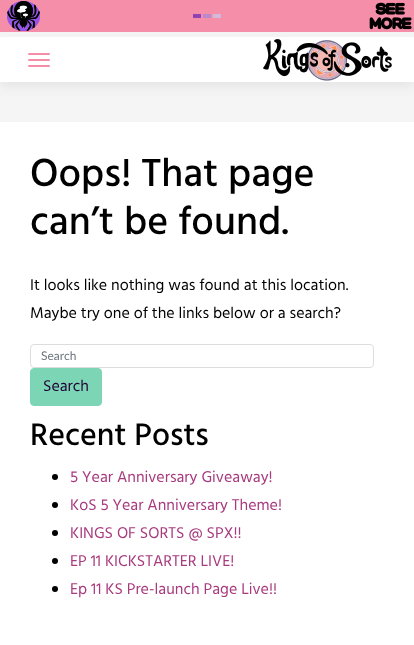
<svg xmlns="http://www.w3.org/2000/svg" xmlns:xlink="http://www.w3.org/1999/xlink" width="414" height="645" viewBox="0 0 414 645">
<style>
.cls-1{font:500 40px Hind;fill:#000000}
.cls-2{font:16px Hind;fill:#000000}
.cls-3{font:12px Lato;fill:#6c757d}
.cls-4{font:16px Hind;fill:#210035}
.cls-5{font:500 32px Hind;fill:#000000}
.cls-6{font:16px Hind;fill:#a83a7e}
</style>
<rect width="100%" height="100%" fill="#f5f5f5"/>
<rect fill="#323232" fill-opacity="0.08" filter="blur(5.5px)" x="0" y="42" width="414" height="45"/>
<rect fill="#f58ea8" x="0" y="0" width="414" height="32"/>
<image xlink:href="image0.png" x="7" y="1" width="33" height="30"/>
<image xlink:href="image1.png" x="193" y="14" width="28" height="4"/>
<image xlink:href="image2.png" x="369" y="2" width="43" height="28"/>
<rect fill="#ffffff" x="0" y="37" width="414" height="45"/>
<rect fill="#f58ea8" x="28" y="53" width="22" height="2" rx="1"/>
<rect fill="#f58ea8" x="28" y="59" width="22" height="2" rx="1"/>
<rect fill="#f58ea8" x="28" y="65" width="22" height="2" rx="1"/>
<image xlink:href="image3.png" x="263" y="39" width="129" height="42"/>
<rect fill="#ffffff" x="0" y="122" width="414" height="523"/>
<rect fill="none" stroke="#dddddd" x="30.5" y="344.5" width="343" height="23" rx="3.5"/>
<rect fill="#7cd6b5" stroke="#7cd6b5" x="30.5" y="368.5" width="71" height="37" rx="3.5"/>
<circle fill="#000000" cx="55" cy="477" r="3"/>
<circle fill="#000000" cx="55" cy="505" r="3"/>
<circle fill="#000000" cx="55" cy="533" r="3"/>
<circle fill="#000000" cx="55" cy="561" r="3"/>
<circle fill="#000000" cx="55" cy="589" r="3"/>
<text class="cls-1"><tspan x="30" y="186">Oops! That page</tspan><tspan x="30" y="234">can’t be found.</tspan></text>
<text class="cls-2"><tspan x="30" y="290">It looks like nothing was found at this location.</tspan><tspan x="30" y="318">Maybe try one of the links below or a search?</tspan></text>
<text class="cls-3" x="41" y="360">Search</text>
<text class="cls-4" x="43" y="391">Search</text>
<text class="cls-5" x="30" y="445">Recent Posts</text>
<text class="cls-6"><tspan x="70" y="482">5 Year Anniversary Giveaway!</tspan><tspan x="70" y="510">KoS 5 Year Anniversary Theme!</tspan><tspan x="70" y="538">KINGS OF SORTS @ SPX!!</tspan><tspan x="70" y="566">EP 11 KICKSTARTER LIVE!</tspan><tspan x="70" y="594">Ep 11 KS Pre-launch Page Live!!</tspan></text>
</svg>
